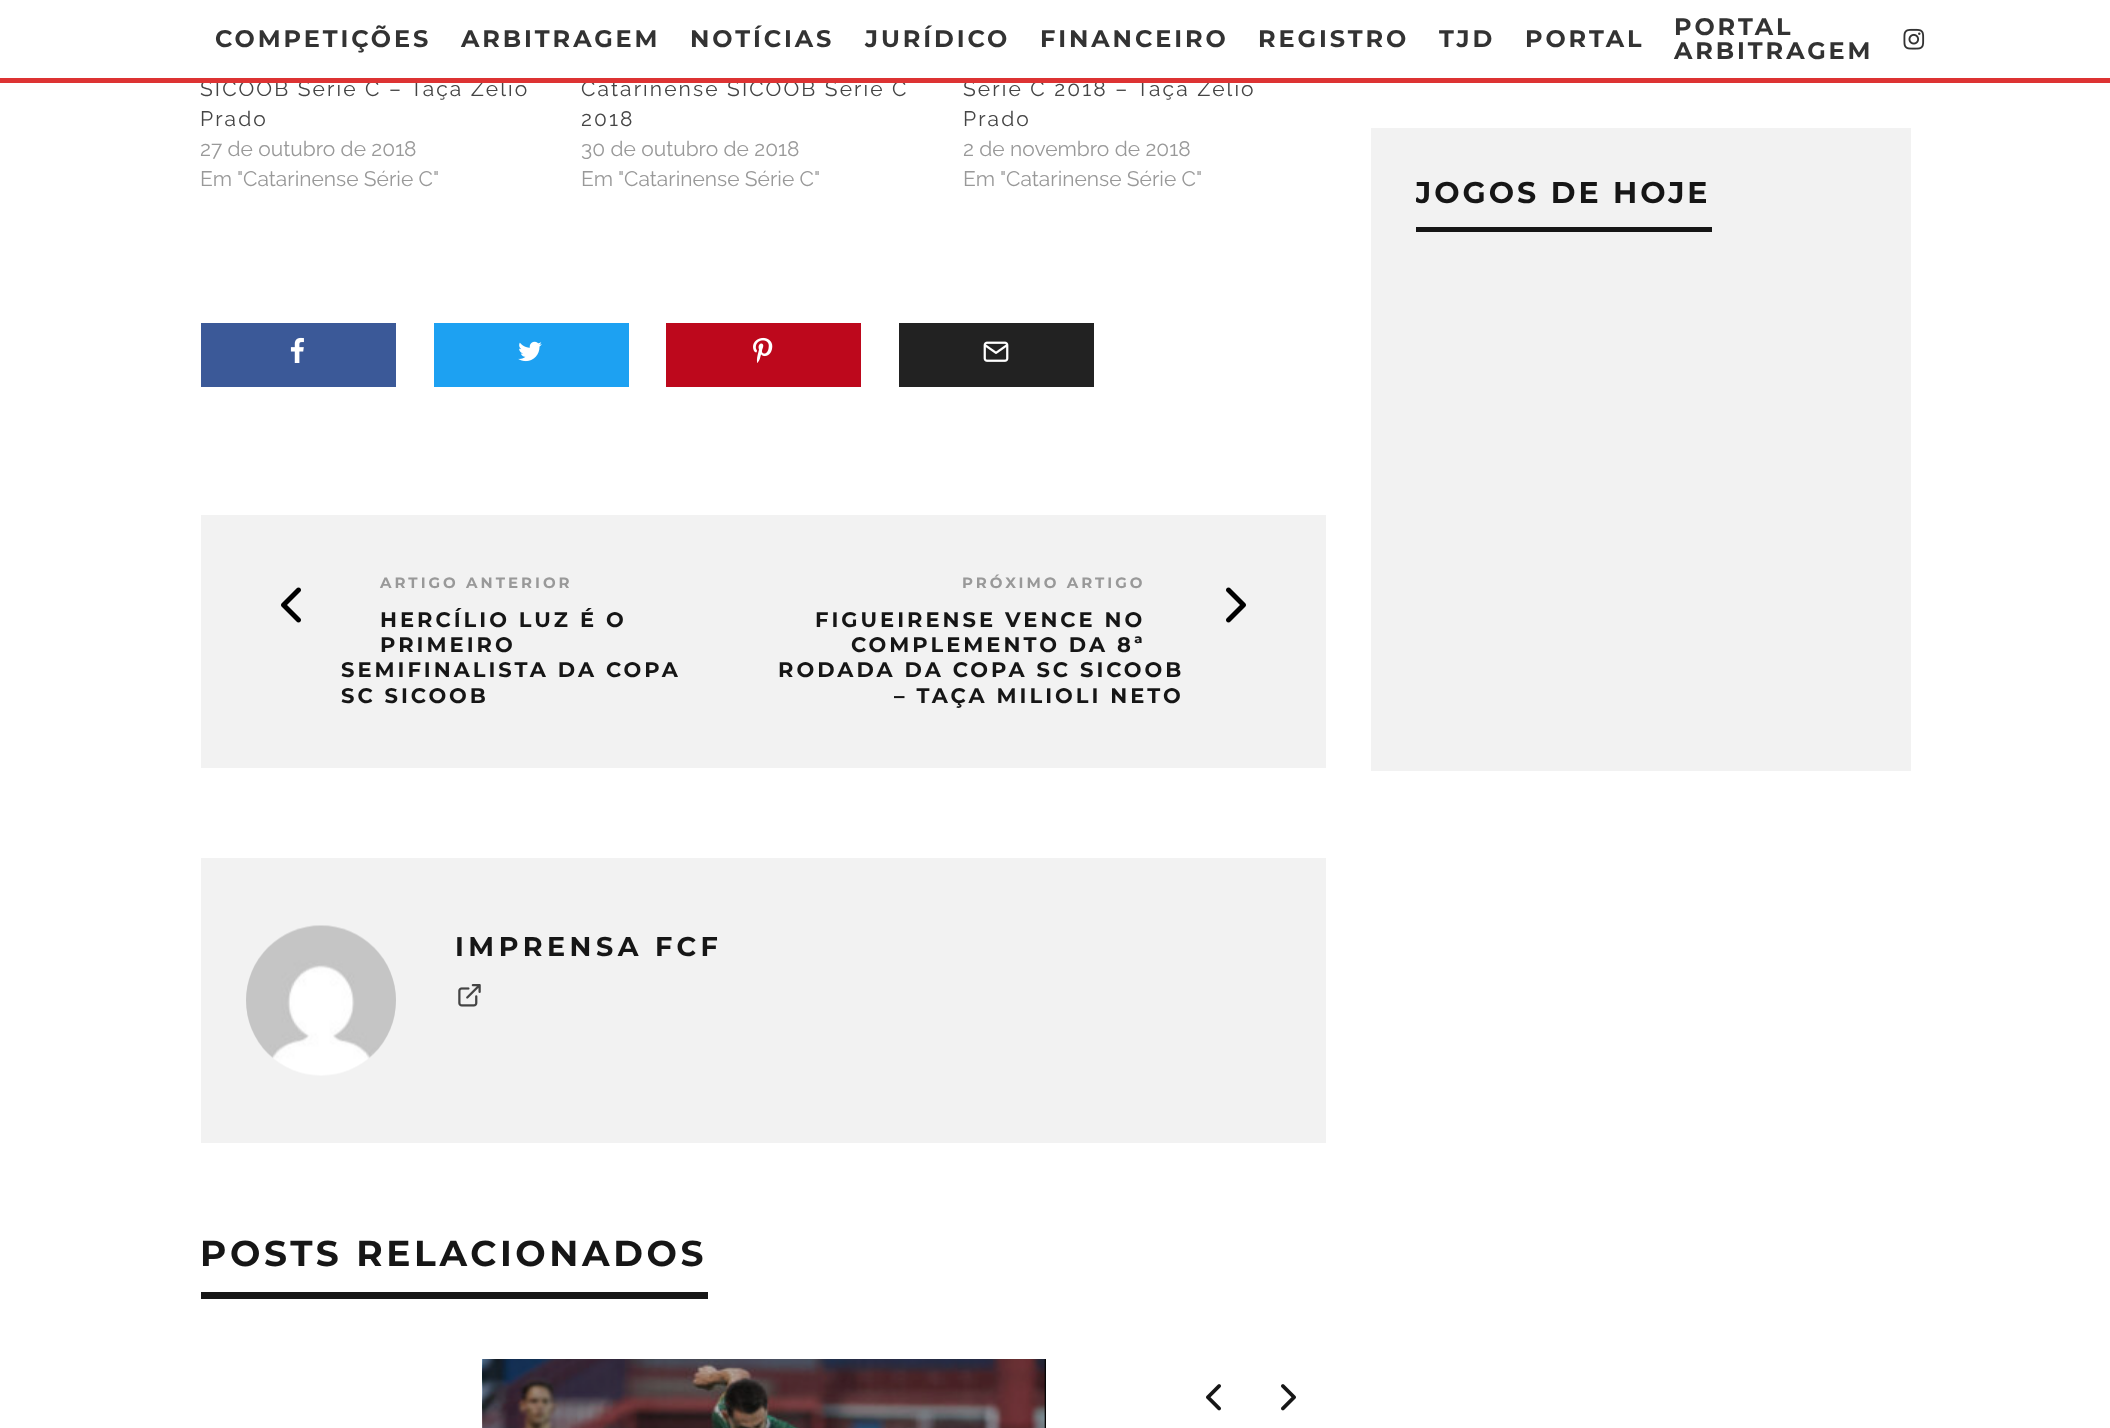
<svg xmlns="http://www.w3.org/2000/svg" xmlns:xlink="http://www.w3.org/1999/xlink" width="2110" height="1428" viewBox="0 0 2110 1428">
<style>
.cls-1{font:bold 24px Montserrat;letter-spacing:2.9px;fill:#333333}
.cls-2{font:21px Raleway;letter-spacing:2.1px;fill:#454545}
.cls-3{font:21px Raleway;fill:#999999}
.cls-4{font:bold 15px Montserrat;letter-spacing:3px;fill:#999999}
.cls-5{font:bold 21px Montserrat;letter-spacing:3px;fill:#161616}
.cls-6{font:bold 27px Montserrat;letter-spacing:4.5px;fill:#161616}
.cls-7{font:bold 36px Montserrat;letter-spacing:3.6px;fill:#161616}
.cls-8{font:bold 30px Montserrat;letter-spacing:3px;fill:#161616}
</style>
<defs>
<clipPath id="clip1"><rect x="1416" y="173" width="450" height="553"/></clipPath>
</defs>
<rect width="100%" height="100%" fill="#ffffff"/>
<image xlink:href="image0.png" x="1903" y="28" width="22" height="22"/>
<rect fill="#3b5998" x="201" y="323" width="195" height="64"/>
<image xlink:href="image1.png" x="290" y="337" width="14" height="26"/>
<rect fill="#1da1f2" x="434" y="323" width="195" height="64"/>
<image xlink:href="image2.png" x="518" y="341" width="24" height="21"/>
<rect fill="#bd081c" x="666" y="323" width="195" height="64"/>
<image xlink:href="image3.png" x="753" y="337" width="20" height="26"/>
<rect fill="#222222" x="899" y="323" width="195" height="64"/>
<image xlink:href="image4.png" x="983" y="341" width="26" height="21"/>
<rect fill="#f2f2f2" x="201" y="515" width="1125" height="253"/>
<image xlink:href="image5.png" x="281" y="587" width="20" height="36"/>
<image xlink:href="image6.png" x="1226" y="587" width="20" height="36"/>
<rect fill="#f2f2f2" x="201" y="858" width="1125" height="285"/>
<image xlink:href="image7.png" x="246" y="925" width="150" height="151"/>
<image xlink:href="image8.png" x="458" y="984" width="23" height="23"/>
<rect fill="#161616" x="201" y="1292" width="507" height="7"/>
<rect fill="#060606" x="483" y="1359" width="563" height="69"/>
<image xlink:href="image9.png" x="482" y="1359" width="563" height="69"/>
<image xlink:href="image10.png" x="1206" y="1384" width="15" height="27"/>
<image xlink:href="image11.png" x="1281" y="1384" width="15" height="27"/>
<rect fill="#f2f2f2" x="1371" y="128" width="540" height="643"/>
<rect fill="#161616" x="1416" y="227" width="296" height="5"/>
<text class="cls-1" x="215" y="47">COMPETIÇÕES</text>
<text class="cls-1" x="461" y="47">ARBITRAGEM</text>
<text class="cls-1" x="690" y="47">NOTÍCIAS</text>
<text class="cls-1" x="865" y="47">JURÍDICO</text>
<text class="cls-1" x="1040" y="47">FINANCEIRO</text>
<text class="cls-1" x="1258" y="47">REGISTRO</text>
<text class="cls-1" x="1439" y="47">TJD</text>
<text class="cls-1" x="1525" y="47">PORTAL</text>
<text class="cls-1"><tspan x="1674" y="35">PORTAL</tspan><tspan x="1674" y="59">ARBITRAGEM</tspan></text>
<text class="cls-2"><tspan x="200" y="96">SICOOB Série C – Taça Zélio</tspan><tspan x="200" y="126">Prado</tspan></text>
<text class="cls-3"><tspan x="200" y="156">27 de outubro de 2018</tspan><tspan x="200" y="186">Em "Catarinense Série C"</tspan></text>
<text class="cls-2"><tspan x="581" y="96">Catarinense SICOOB Série C</tspan><tspan x="581" y="126">2018</tspan></text>
<text class="cls-3"><tspan x="581" y="156">30 de outubro de 2018</tspan><tspan x="581" y="186">Em "Catarinense Série C"</tspan></text>
<text class="cls-2" x="963" y="96">Série C 2018 – Taça Zélio</text>
<rect fill="#dd3333" x="0" y="78" width="2110" height="5"/>
<text class="cls-2" x="963" y="126">Prado</text>
<text class="cls-3"><tspan x="963" y="156">2 de novembro de 2018</tspan><tspan x="963" y="186">Em "Catarinense Série C"</tspan></text>
<text class="cls-4" x="380" y="588">ARTIGO ANTERIOR</text>
<text class="cls-5"><tspan x="380" y="627">HERCÍLIO LUZ É O</tspan><tspan x="380" y="652">PRIMEIRO</tspan></text>
<text class="cls-5"><tspan x="341" y="677">SEMIFINALISTA DA COPA</tspan><tspan x="341" y="703">SC SICOOB</tspan></text>
<text class="cls-4" x="962" y="588">PRÓXIMO ARTIGO</text>
<text class="cls-5" x="815" y="627">FIGUEIRENSE VENCE NO</text>
<text class="cls-5" x="851" y="652">COMPLEMENTO DA 8ª</text>
<text class="cls-5" x="778" y="677">RODADA DA COPA SC SICOOB</text>
<text class="cls-5" x="894" y="703">– TAÇA MILIOLI NETO</text>
<text class="cls-6" x="455" y="956">IMPRENSA FCF</text>
<text class="cls-7" x="200" y="1266">POSTS RELACIONADOS</text>
<g clip-path="url(#clip1)">
<text class="cls-8" x="1415" y="203">JOGOS DE HOJE</text>
</g>
</svg>
